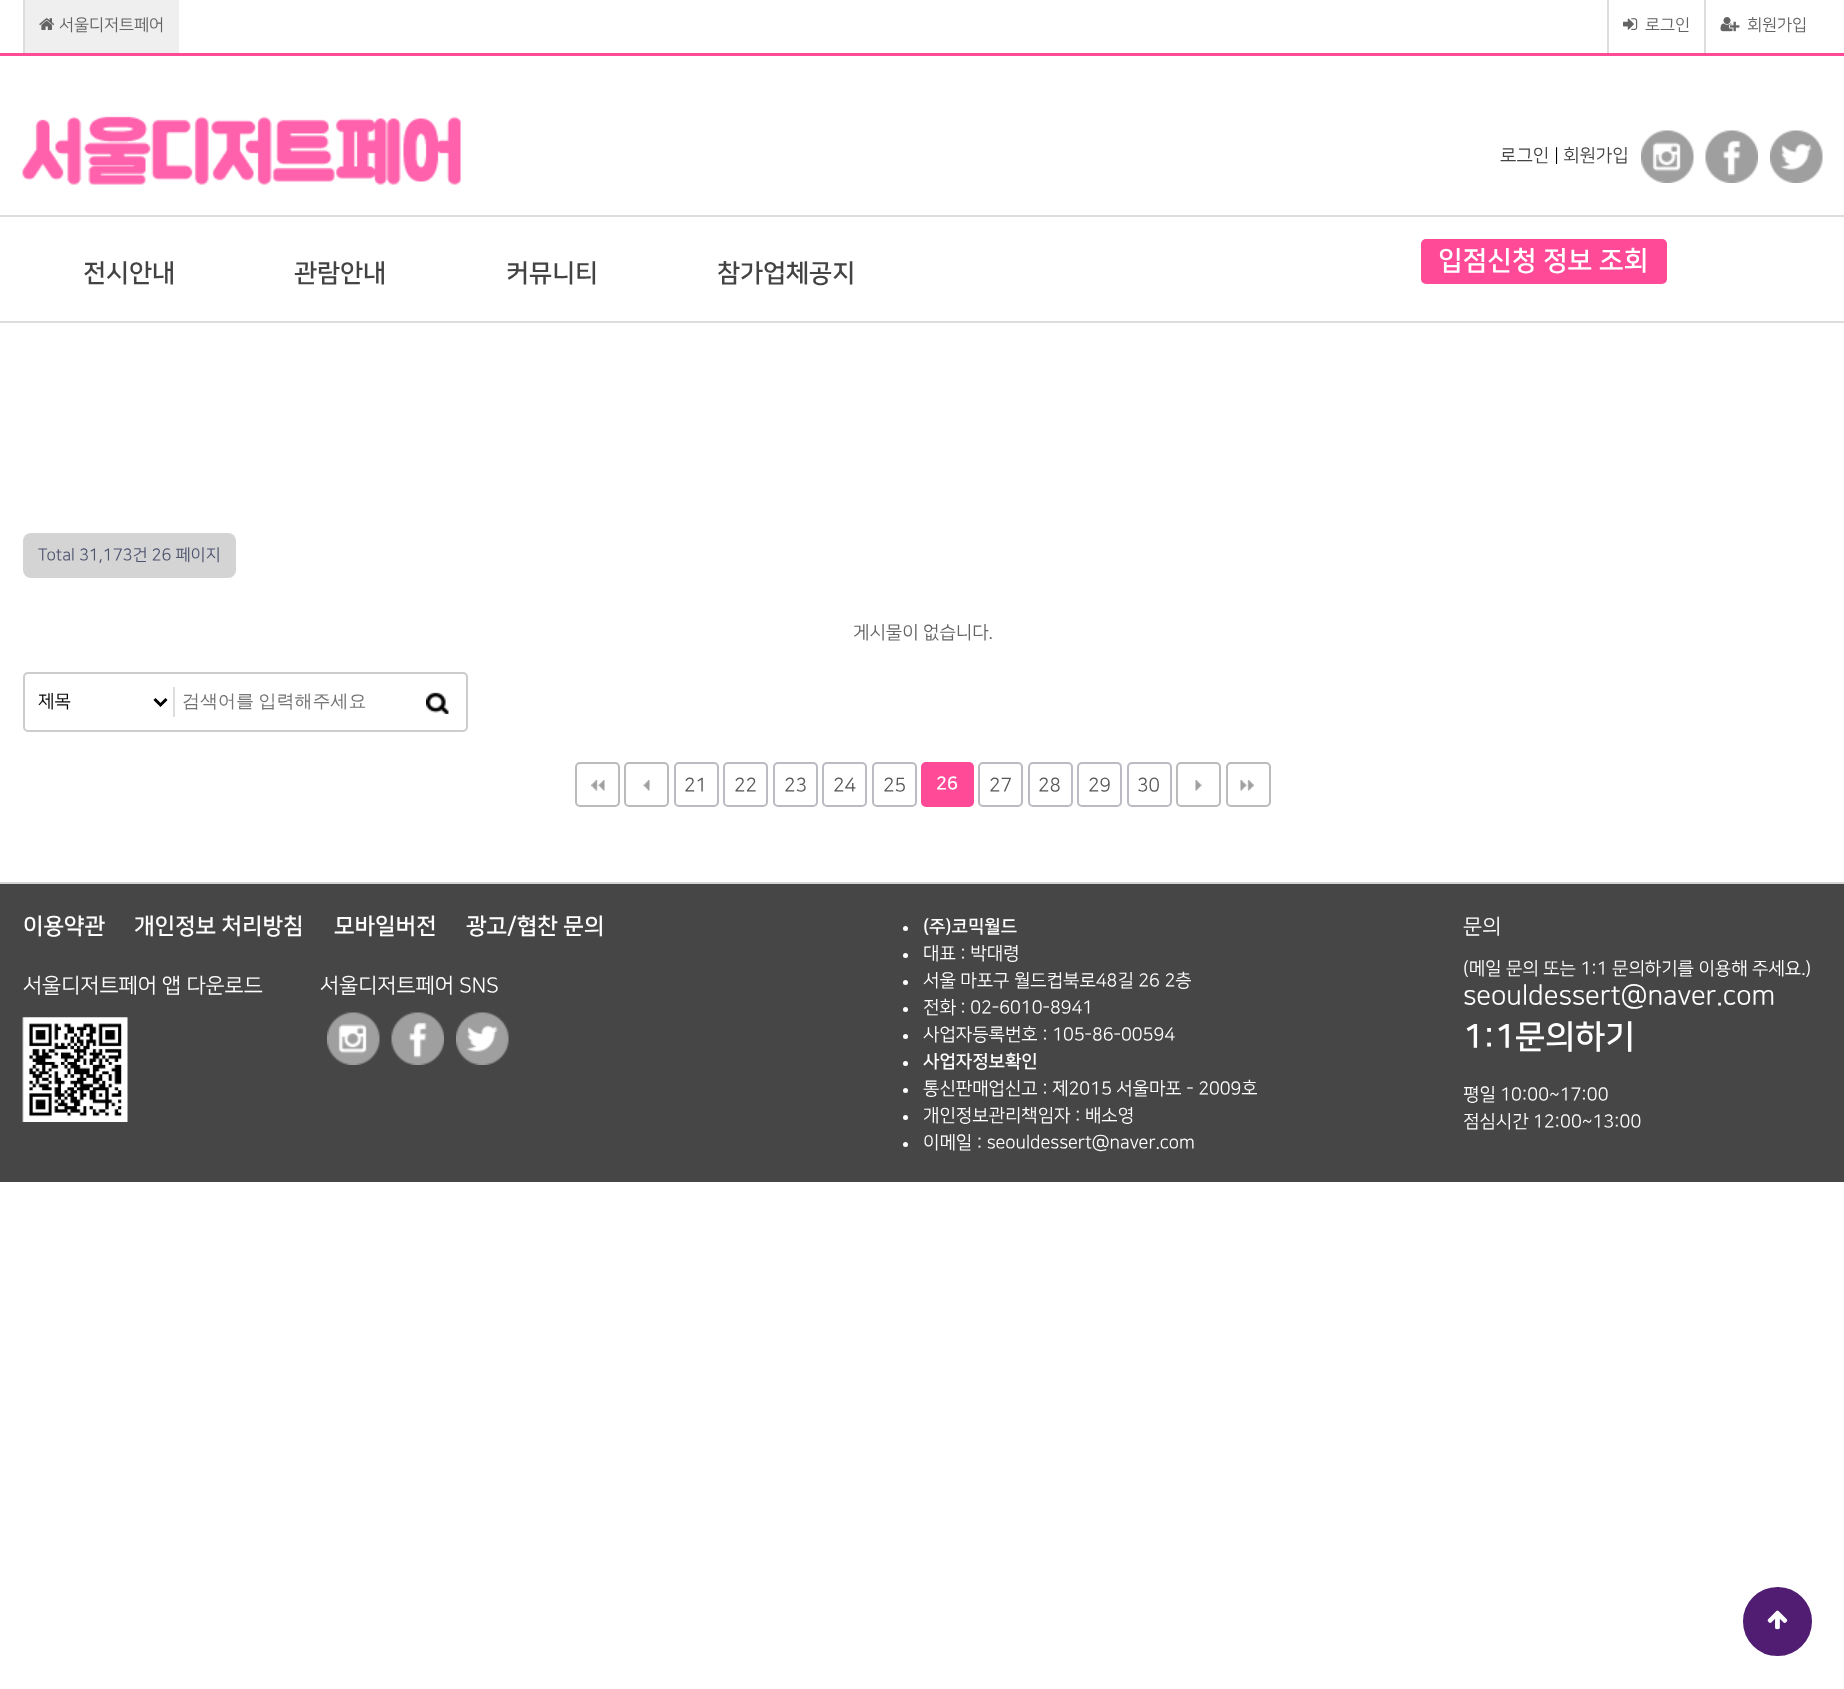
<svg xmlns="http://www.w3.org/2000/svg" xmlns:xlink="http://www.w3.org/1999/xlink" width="1844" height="1689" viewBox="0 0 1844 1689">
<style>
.cls-1{font:16.5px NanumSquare;fill:#646464}
.cls-2{font:18px NanumSquare;fill:#434343}
.cls-3{font:18px NanumSquare;fill:#000000}
.cls-4{font:bold 25.25px NanumSquare;fill:#434343}
.cls-5{font:bold 27px NanumSquare;fill:#ffffff}
.cls-6{font:16.5px NanumSquare;fill:#4e546f}
.cls-7{font:18px NanumSquare;fill:#646464}
.cls-8{font:500 18px WenQuanYi Zen Hei;fill:#757575}
.cls-9{font:19px NanumSquare;fill:#555555}
.cls-10{font:bold 18px NanumSquare;fill:#ffffff}
.cls-11{font:bold 22.5px NanumSquare;fill:#ffffff}
.cls-12{font:21px NanumSquare;fill:#ffffff}
.cls-13{font:18px NanumSquare;fill:#ffffff}
.cls-14{font:27px NanumSquare;fill:#ffffff}
.cls-15{font:bold 33px NanumSquare;fill:#ffffff}
</style>
<rect width="100%" height="100%" fill="#ffffff"/>
<rect fill="#efefef" x="25" y="0" width="154" height="53"/>
<rect fill="#dddddd" x="23" y="0" width="2" height="53"/>
<image xlink:href="image0.png" x="39" y="18" width="16" height="12"/>
<rect fill="#dddddd" x="1607" y="0" width="2" height="53"/>
<image xlink:href="image1.png" x="1623" y="18" width="15" height="12"/>
<rect fill="#dddddd" x="1704" y="0" width="2" height="53"/>
<image xlink:href="image2.png" x="1720" y="17" width="20" height="15"/>
<rect fill="#ff4a97" x="0" y="53" width="1844" height="3"/>
<rect fill="#dddddd" x="0" y="321" width="1844" height="2"/>
<image xlink:href="image3.png" x="22" y="116" width="439" height="69"/>
<image xlink:href="image4.png" x="1641" y="130" width="53" height="53"/>
<image xlink:href="image5.png" x="1705" y="130" width="53" height="53"/>
<image xlink:href="image6.png" x="1770" y="130" width="53" height="53"/>
<rect fill="#dddddd" x="0" y="215" width="1844" height="2"/>
<rect fill="#ff4a97" x="1421" y="239" width="246" height="45" rx="5"/>
<rect fill="#d4d4d4" x="23" y="533" width="213" height="45" rx="8"/>
<rect fill="none" stroke="#cccccc" stroke-width="2" x="24" y="673" width="443" height="58" rx="4"/>
<rect fill="#dddddd" x="173" y="687" width="2" height="30"/>
<path fill="none" stroke="#000000" stroke-width="3" d="M154.5 699L160.5 705L166.5 699"/>
<image xlink:href="image7.png" x="426" y="692" width="23" height="22"/>
<image xlink:href="image8.png" x="591" y="780" width="14" height="11"/>
<rect fill="none" stroke="#bbbbbb" stroke-width="2" x="576" y="763" width="43" height="43" rx="4"/>
<image xlink:href="image9.png" x="643" y="780" width="7" height="11"/>
<rect fill="none" stroke="#bbbbbb" stroke-width="2" x="625" y="763" width="43" height="43" rx="4"/>
<rect fill="none" stroke="#bbbcc3" stroke-width="2" x="675" y="763" width="43" height="43" rx="4"/>
<rect fill="none" stroke="#bbbcc3" stroke-width="2" x="724" y="763" width="43" height="43" rx="4"/>
<rect fill="none" stroke="#bbbcc3" stroke-width="2" x="774" y="763" width="43" height="43" rx="4"/>
<rect fill="none" stroke="#bbbcc3" stroke-width="2" x="823" y="763" width="43" height="43" rx="4"/>
<rect fill="none" stroke="#bbbcc3" stroke-width="2" x="873" y="763" width="43" height="43" rx="4"/>
<rect fill="#ff4a97" x="921" y="762" width="53" height="45" rx="5"/>
<rect fill="none" stroke="#bbbcc3" stroke-width="2" x="979" y="763" width="43" height="43" rx="4"/>
<rect fill="none" stroke="#bbbcc3" stroke-width="2" x="1029" y="763" width="43" height="43" rx="4"/>
<rect fill="none" stroke="#bbbcc3" stroke-width="2" x="1078" y="763" width="43" height="43" rx="4"/>
<rect fill="none" stroke="#bbbcc3" stroke-width="2" x="1128" y="763" width="43" height="43" rx="4"/>
<image xlink:href="image10.png" x="1195" y="780" width="7" height="11"/>
<rect fill="none" stroke="#bbbbbb" stroke-width="2" x="1177" y="763" width="43" height="43" rx="4"/>
<image xlink:href="image11.png" x="1240" y="780" width="14" height="11"/>
<rect fill="none" stroke="#bbbbbb" stroke-width="2" x="1227" y="763" width="43" height="43" rx="4"/>
<rect fill="#464646" x="0" y="884" width="1844" height="298"/>
<rect fill="#d5d5d5" x="0" y="882" width="1844" height="2"/>
<image xlink:href="image12.png" x="327" y="1012" width="53" height="53"/>
<image xlink:href="image13.png" x="391" y="1012" width="53" height="53"/>
<image xlink:href="image14.png" x="456" y="1012" width="53" height="53"/>
<image xlink:href="image15.png" x="22" y="1017" width="106" height="105"/>
<circle fill="#ffffff" cx="905.5" cy="928.5" r="2.5"/>
<circle fill="#ffffff" cx="905.5" cy="955.5" r="2.5"/>
<circle fill="#ffffff" cx="905.5" cy="982.5" r="2.5"/>
<circle fill="#ffffff" cx="905.5" cy="1009.5" r="2.5"/>
<circle fill="#ffffff" cx="905.5" cy="1036.5" r="2.5"/>
<circle fill="#ffffff" cx="905.5" cy="1063.5" r="2.5"/>
<circle fill="#ffffff" cx="905.5" cy="1090.5" r="2.5"/>
<circle fill="#ffffff" cx="905.5" cy="1117.5" r="2.5"/>
<circle fill="#ffffff" cx="905.5" cy="1144.5" r="2.5"/>
<circle fill="#501d73" stroke="#ffffff" stroke-width="3" cx="1777.5" cy="1621.5" r="36"/>
<image xlink:href="image16.png" x="1767" y="1610" width="21" height="20"/>
<text class="cls-1" x="59" y="30">서울디저트페어</text>
<text class="cls-1" x="1645" y="30">로그인</text>
<text class="cls-1" x="1747" y="30">회원가입</text>
<text class="cls-2" x="1500" y="161">로그인</text>
<text class="cls-3" x="1554" y="161">|</text>
<text class="cls-2" x="1563" y="161">회원가입</text>
<text class="cls-4" x="83" y="281">전시안내</text>
<text class="cls-4" x="294" y="281">관람안내</text>
<text class="cls-4" x="506" y="281">커뮤니티</text>
<text class="cls-4" x="717" y="281">참가업체공지</text>
<text class="cls-5" x="1438" y="269">입점신청 정보 조회</text>
<text class="cls-6" x="38" y="560">Total 31,173건 26 페이지</text>
<text class="cls-7" x="853" y="638">게시물이 없습니다.</text>
<text class="cls-3" x="38" y="707">제목</text>
<text class="cls-8" x="182" y="707" word-spacing="-1">검색어를 입력해주세요</text>
<text class="cls-9" x="684" y="791">21</text>
<text class="cls-9" x="734" y="791">22</text>
<text class="cls-9" x="784" y="791">23</text>
<text class="cls-9" x="833" y="791">24</text>
<text class="cls-9" x="883" y="791">25</text>
<text class="cls-10" x="936" y="789">26</text>
<text class="cls-9" x="989" y="791">27</text>
<text class="cls-9" x="1038" y="791">28</text>
<text class="cls-9" x="1088" y="791">29</text>
<text class="cls-9" x="1137" y="791">30</text>
<text class="cls-11" x="23" y="933">이용약관</text>
<text class="cls-11" x="134" y="933">개인정보 처리방침</text>
<text class="cls-11" x="334" y="933">모바일버전</text>
<text class="cls-11" x="466" y="933">광고/협찬 문의</text>
<text class="cls-12" x="23" y="992">서울디저트페어 앱 다운로드</text>
<text class="cls-12" x="320" y="992">서울디저트페어 SNS</text>
<text class="cls-10" x="923" y="932">(주)코믹월드</text>
<text class="cls-13"><tspan x="923" y="959">대표 : 박대령</tspan><tspan x="923" y="986">서울 마포구 월드컵북로48길 26 2층</tspan><tspan x="923" y="1013">전화 : 02-6010-8941</tspan><tspan x="923" y="1040">사업자등록번호 : 105-86-00594</tspan></text>
<text class="cls-10" x="923" y="1067">사업자정보확인</text>
<text class="cls-13"><tspan x="923" y="1094">통신판매업신고 : 제2015 서울마포 - 2009호</tspan><tspan x="923" y="1121">개인정보관리책임자 : 배소영</tspan><tspan x="923" y="1148">이메일 : seouldessert@naver.com</tspan></text>
<text class="cls-12" x="1463" y="933">문의</text>
<text class="cls-13" x="1463" y="974">(메일 문의 또는 1:1 문의하기를 이용해 주세요.)</text>
<text class="cls-14" x="1463" y="1004">seouldessert@naver.com</text>
<text class="cls-15" x="1463" y="1047">1:1문의하기</text>
<text class="cls-13"><tspan x="1463" y="1100">평일 10:00~17:00</tspan><tspan x="1463" y="1127">점심시간 12:00~13:00</tspan></text>
</svg>
